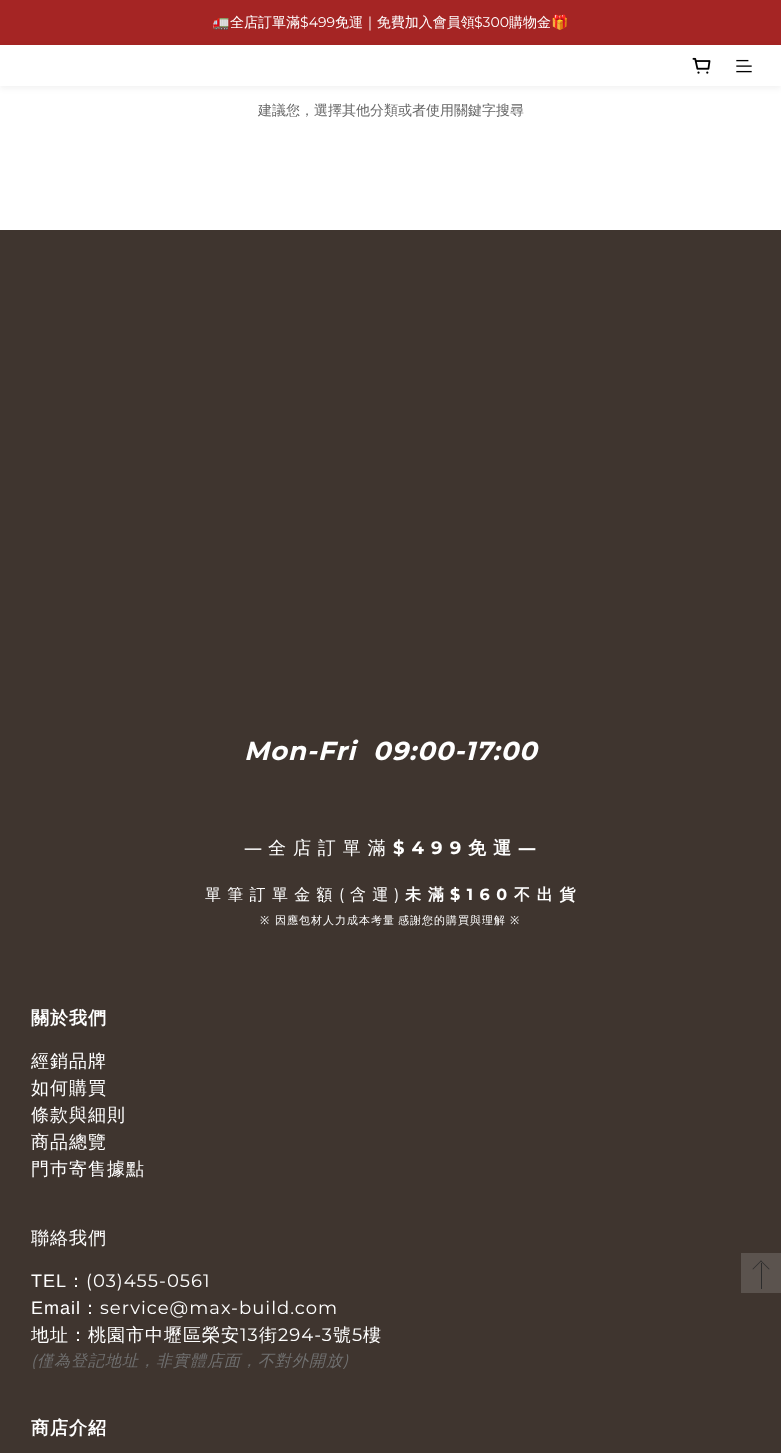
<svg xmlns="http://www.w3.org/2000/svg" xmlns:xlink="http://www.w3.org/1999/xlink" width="781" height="1453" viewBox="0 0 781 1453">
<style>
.cls-1{font:14px Noto Color Emoji;fill:#ffffff}
.cls-2{font:500 14px WenQuanYi Zen Hei;fill:#ffffff}
.cls-3{font:14px Montserrat;fill:#ffffff}
.cls-4{font:500 14px WenQuanYi Zen Hei;fill:#666666}
.cls-5{font:italic bold 26px Montserrat;letter-spacing:1px;fill:#ffffff}
.cls-6{font:18px Noto Sans;letter-spacing:1px;fill:#ffffff}
.cls-7{font:500 18px WenQuanYi Zen Hei;letter-spacing:1px;fill:#ffffff}
.cls-8{font:bold 18px Montserrat;letter-spacing:1px;fill:#ffffff}
.cls-9{font:bold 18px WenQuanYi Zen Hei;letter-spacing:1px;fill:#ffffff}
.cls-10{font:bold 18px Noto Sans;letter-spacing:1px;fill:#ffffff}
.cls-11{font:500 16px WenQuanYi Zen Hei;letter-spacing:1px;fill:#ffffff}
.cls-12{font:16px Montserrat;letter-spacing:1px;fill:#ffffff}
.cls-13{font:bold 16px WenQuanYi Zen Hei;letter-spacing:1px;fill:#ffffff}
.cls-14{font:bold 16px Montserrat;letter-spacing:1px;fill:#ffffff}
.cls-15{font:11px Noto Sans;letter-spacing:1px;fill:#ffffff}
.cls-16{font:500 11px WenQuanYi Zen Hei;letter-spacing:1px;fill:#ffffff}
.cls-17{font:18px Liberation Sans;letter-spacing:1px;fill:#ffffff}
.cls-18{font:18px Montserrat;letter-spacing:1px;fill:#ffffff}
.cls-19{font:italic 16px Montserrat;letter-spacing:1px;fill:#6f6f6f}
.cls-20{font:italic 500 16px WenQuanYi Zen Hei;letter-spacing:1px;fill:#6f6f6f}
</style>
<rect width="100%" height="100%" fill="#ffffff"/>
<rect fill="#a52524" x="0" y="0" width="781" height="45"/>
<rect fill="#000000" fill-opacity="0.06" filter="blur(3px)" x="0" y="47" width="781" height="41"/>
<rect fill="#ffffff" x="0" y="45" width="781" height="41"/>
<image xlink:href="image0.png" x="692" y="57" width="19" height="17"/>
<image xlink:href="image1.png" x="736" y="59" width="16" height="14"/>
<rect fill="#3f352f" x="0" y="230" width="781" height="1223"/>
<rect fill="#5b534e" x="741" y="1253" width="40" height="40"/>
<path fill="#2c2c2c" d="M761 1260.5L769.5 1269L769 1269.5L760.5 1261Z"/>
<path fill="#2c2c2c" d="M761 1260.5L761.5 1261L753 1269.5L752.5 1269Z"/>
<rect fill="#2c2c2c" x="761" y="1263" width="1" height="26"/>
<text class="cls-1" x="212" y="27">🚛</text>
<text class="cls-2" x="230" y="27">全店訂單滿</text>
<text class="cls-3" x="300" y="27">$499</text>
<text class="cls-2" x="335" y="27">免運｜免費加入會員領</text>
<text class="cls-3" x="474" y="27">$300</text>
<text class="cls-2" x="509" y="27">購物金</text>
<text class="cls-1" x="551" y="27">🎁</text>
<text class="cls-4" x="258" y="115">建議您，選擇其他分類或者使用關鍵字搜尋</text>
<text class="cls-5" xml:space="preserve" x="244" y="760">Mon-Fri  09:00-17:00</text>
<text class="cls-6" x="244" y="854">―</text>
<text class="cls-7" x="268" y="854" word-spacing="-0.5">全 店 訂 單 滿</text>
<text class="cls-8" x="393" y="854">$ 4 9 9</text>
<text class="cls-9" x="468" y="854">免</text>
<text class="cls-9" x="493" y="854">運</text>
<text class="cls-10" x="518" y="854">―</text>
<text class="cls-11" x="205" y="900" word-spacing="-0.5">單 筆 訂 單 金 額</text>
<text class="cls-12" x="339" y="900">(</text>
<text class="cls-11" x="350" y="900" word-spacing="-0.5">含 運</text>
<text class="cls-12" x="394" y="900">)</text>
<text class="cls-13" x="405" y="900">未 滿</text>
<text class="cls-14" x="450" y="900">$ 1 6 0</text>
<text class="cls-13" x="514" y="900">不 出 貨</text>
<text class="cls-15" x="260" y="924">※</text>
<text class="cls-16" x="275" y="924">因應包材人力成本考量</text>
<text class="cls-16" x="398" y="924">感謝您的購買與理解</text>
<text class="cls-15" x="510" y="924">※</text>
<text class="cls-9" x="31" y="1024">關於我們</text>
<text class="cls-7"><tspan x="31" y="1067">經銷品牌</tspan><tspan x="31" y="1094">如何購買</tspan><tspan x="31" y="1121">條款與細則</tspan><tspan x="31" y="1148">商品總覽</tspan><tspan x="31" y="1175">門巿寄售據點</tspan></text>
<text class="cls-7" x="31" y="1244">聯絡我們</text>
<text class="cls-17" x="31" y="1287">TEL</text>
<text class="cls-7" x="67" y="1287">：</text>
<text class="cls-18" x="86" y="1287">(03)455-0561</text>
<text class="cls-17" x="31" y="1314">Email</text>
<text class="cls-7" x="81" y="1314">：</text>
<text class="cls-18" x="100" y="1314">service@max-build.com</text>
<text class="cls-7" x="31" y="1341">地址：桃園市中壢區榮安</text>
<text class="cls-18" x="240" y="1341">13</text>
<text class="cls-7" x="259" y="1341">街</text>
<text class="cls-18" x="278" y="1341">294-3</text>
<text class="cls-7" x="333" y="1341">號</text>
<text class="cls-18" x="352" y="1341">5</text>
<text class="cls-7" x="363" y="1341">樓</text>
<text class="cls-19" x="31" y="1366">(</text>
<text class="cls-20" x="37" y="1366">僅為登記地址，非實體店面，不對外開放</text>
<text class="cls-19" x="343" y="1366">)</text>
<text class="cls-9" x="31" y="1434">商店介紹</text>
</svg>
